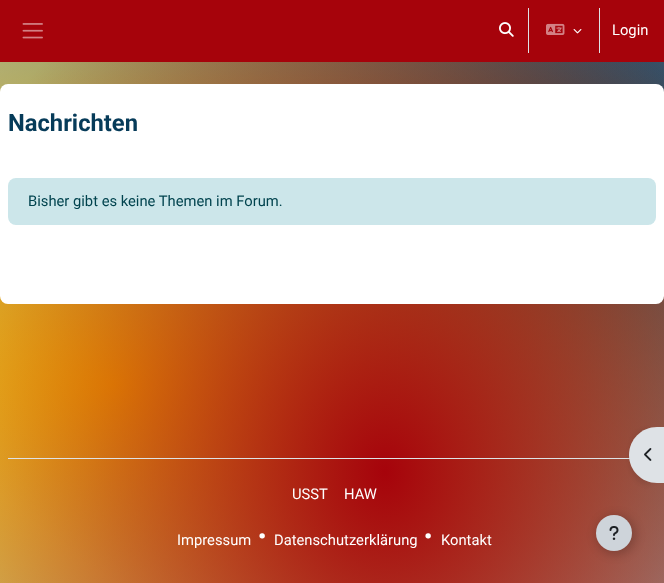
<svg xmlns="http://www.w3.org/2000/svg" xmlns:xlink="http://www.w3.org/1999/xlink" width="664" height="583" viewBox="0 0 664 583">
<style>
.cls-1{font:14.75px Roboto;fill:#ffffff}
.cls-2{font:bold 23.75px Roboto;fill:#063b59}
.cls-3{font:14.75px Roboto;fill:#00434e}
.cls-4{font:48px Roboto;fill:#ffffff}
</style>
<defs>
<radialGradient id="g1" gradientUnits="userSpaceOnUse" cx="0" cy="0" r="1" gradientTransform="matrix(789 0 0 594 558 163)"><stop offset="0" stop-color="#063b59"/><stop offset="0.9" stop-color="#a9bbbb"/></radialGradient>
<radialGradient id="g2" gradientUnits="userSpaceOnUse" cx="0" cy="0" r="1" gradientTransform="matrix(779 0 0 544 113 385)"><stop offset="0" stop-color="#ffc300"/><stop offset="0.91" stop-color="#ffc300" stop-opacity="0"/></radialGradient>
<radialGradient id="g3" gradientUnits="userSpaceOnUse" cx="0" cy="0" r="1" gradientTransform="matrix(545 0 0 668 385 472)"><stop offset="0" stop-color="#a6030b"/><stop offset="0.88" stop-color="#a6030b" stop-opacity="0"/></radialGradient>
</defs>
<rect width="100%" height="100%" fill="#ffffff"/>
<rect fill="url(#g1)" x="0" y="62" width="664" height="521"/>
<rect fill="url(#g2)" x="0" y="62" width="664" height="521"/>
<rect fill="url(#g3)" x="0" y="62" width="664" height="521"/>
<rect fill="#a6030b" x="0" y="0" width="664" height="62"/>
<image xlink:href="image0.png" x="22" y="23" width="21" height="16"/>
<image xlink:href="image1.png" x="499" y="22" width="15" height="15"/>
<rect fill="#dee2e6" x="528" y="8" width="1" height="45"/>
<image xlink:href="image2.png" x="546" y="23" width="19" height="12"/>
<image xlink:href="image3.png" x="573" y="29" width="9" height="5"/>
<rect fill="#dee2e6" x="599" y="8" width="1" height="45"/>
<rect fill="#ffffff" x="0" y="84" width="664" height="220" rx="8"/>
<rect fill="#cce6ea" x="8" y="178" width="648" height="47" rx="8"/>
<rect fill="#dee2e6" x="8" y="458" width="622" height="1"/>
<rect fill="#000000" fill-opacity="0.07" filter="blur(2px)" x="629" y="429" width="35" height="56" rx="28"/>
<path fill="#dee2e6" d="M657 427H664V483H657C641.5 483 629 470.5 629 455C629 439.5 641.5 427 657 427Z"/>
<image xlink:href="image4.png" x="644" y="448" width="8" height="13"/>
<rect fill="#000000" fill-opacity="0.18" filter="blur(5px)" x="596" y="515" width="40" height="40" rx="20"/>
<circle fill="#ced4da" cx="614" cy="533" r="18"/>
<image xlink:href="image5.png" x="609" y="526" width="10" height="14"/>
<text class="cls-1" x="612" y="35">Login</text>
<text class="cls-2" x="8" y="131">Nachrichten</text>
<text class="cls-3" x="28" y="206">Bisher gibt es keine Themen im Forum.</text>
<text class="cls-1" x="292" y="499">USST</text>
<text class="cls-1" x="344" y="499">HAW</text>
<text class="cls-1" x="177" y="545">Impressum</text>
<text class="cls-4" x="256" y="553">·</text>
<text class="cls-1" x="274" y="545">Datenschutzerklärung</text>
<text class="cls-4" x="422" y="553">·</text>
<text class="cls-1" x="441" y="545">Kontakt</text>
</svg>
